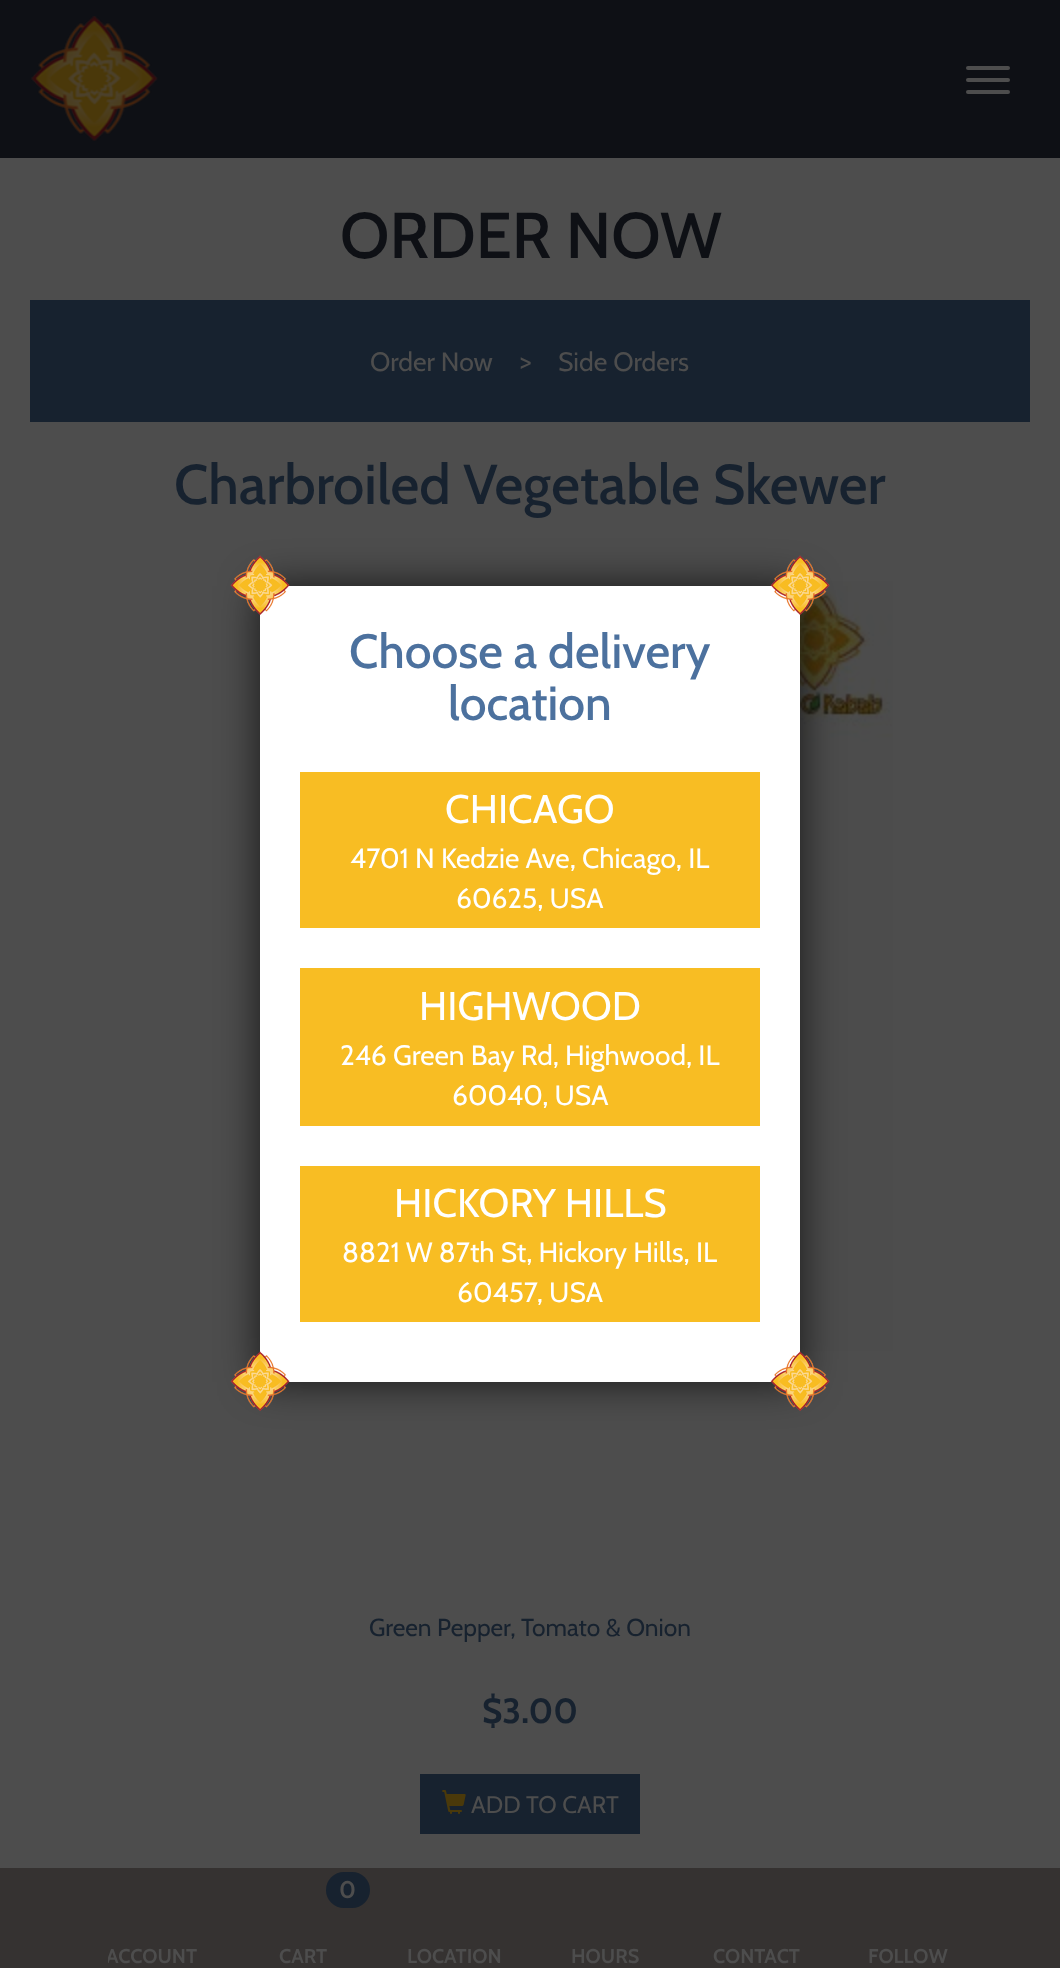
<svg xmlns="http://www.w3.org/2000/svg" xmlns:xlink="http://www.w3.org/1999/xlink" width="1060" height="1968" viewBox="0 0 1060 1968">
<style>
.cls-1{font:500 64.5px Cabin;fill:#0e1015}
.cls-2{font:26.5px Cabin;fill:#4d4d4d}
.cls-3{font:28px Cabin;fill:#4d4d4d}
.cls-4{font:500 56px Cabin;fill:#17222f}
.cls-5{font:24.5px Cabin;fill:#17222f}
.cls-6{font:bold 35px Cabin;fill:#17222f}
.cls-7{font:24px Cabin;fill:#4d4d4d}
.cls-8{font:500 48px Cabin;fill:#4c719e}
.cls-9{font:40px Cabin;fill:#ffffff}
.cls-10{font:28px Cabin;fill:#ffffff}
.cls-11{font:bold 20px Cabin;fill:#4d4d4d}
.cls-12{font:bold 24px Cabin;fill:#4d4d4d}
</style>
<defs>
<clipPath id="clip1"><rect x="108" y="1944" width="90" height="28"/></clipPath>
</defs>
<rect width="100%" height="100%" fill="#4d4d4d"/>
<rect fill="#0e1015" x="0" y="0" width="1060" height="158"/>
<image xlink:href="image0.png" x="31" y="16" width="127" height="125"/>
<rect fill="#4d4d4d" x="966" y="66" width="44" height="4" rx="2"/>
<rect fill="#4d4d4d" x="966" y="78" width="44" height="4" rx="2"/>
<rect fill="#4d4d4d" x="966" y="90" width="44" height="4" rx="2"/>
<rect fill="#17222f" x="30" y="300" width="1000" height="122"/>
<image xlink:href="image1.png" x="285" y="581" width="608" height="770"/>
<rect fill="#17222f" x="420" y="1774" width="220" height="60"/>
<image xlink:href="image2.png" x="442" y="1790" width="24" height="24"/>
<rect fill="#000000" fill-opacity="0.7" filter="blur(20px)" x="260" y="586" width="540" height="796"/>
<rect fill="#ffffff" x="260" y="586" width="540" height="796"/>
<image xlink:href="image3.png" x="230" y="555" width="60" height="60"/>
<image xlink:href="image4.png" x="770" y="555" width="60" height="60"/>
<rect fill="#f8bd23" x="300" y="772" width="460" height="156"/>
<rect fill="#f8bd23" x="300" y="968" width="460" height="158"/>
<rect fill="#f8bd23" x="300" y="1166" width="460" height="156"/>
<image xlink:href="image5.png" x="230" y="1351" width="60" height="60"/>
<image xlink:href="image6.png" x="770" y="1351" width="60" height="60"/>
<rect fill="#353231" x="0" y="1868" width="1060" height="100"/>
<rect fill="#17222f" x="326" y="1872" width="44" height="36" rx="18"/>
<text class="cls-1" x="340" y="258">ORDER NOW</text>
<text class="cls-2" x="370" y="371">Order Now</text>
<text class="cls-3" x="520" y="371">&gt;</text>
<text class="cls-2" x="558" y="371">Side Orders</text>
<text class="cls-4" x="174" y="504">Charbroiled Vegetable Skewer</text>
<text class="cls-5" x="369" y="1636">Green Pepper, Tomato &amp; Onion</text>
<text class="cls-6" x="482" y="1723">$3.00</text>
<text class="cls-7" x="471" y="1813">ADD TO CART</text>
<text class="cls-8" x="349" y="668">Choose a delivery</text>
<text class="cls-8" x="448" y="720">location</text>
<text class="cls-9" x="445" y="823">CHICAGO</text>
<text class="cls-10" x="350" y="868">4701 N Kedzie Ave, Chicago, IL</text>
<text class="cls-10" x="456" y="908">60625, USA</text>
<text class="cls-9" x="419" y="1020">HIGHWOOD</text>
<text class="cls-10" x="340" y="1065">246 Green Bay Rd, Highwood, IL</text>
<text class="cls-10" x="452" y="1105">60040, USA</text>
<text class="cls-9" x="394" y="1217">HICKORY HILLS</text>
<text class="cls-10" x="342" y="1262">8821 W 87th St, Hickory Hills, IL</text>
<text class="cls-10" x="457" y="1302">60457, USA</text>
<g clip-path="url(#clip1)">
<text class="cls-11" x="106" y="1963">ACCOUNT</text>
</g>
<text class="cls-12" x="339" y="1898">0</text>
<text class="cls-11" x="279" y="1963">CART</text>
<text class="cls-11" x="407" y="1963">LOCATION</text>
<text class="cls-11" x="571" y="1963">HOURS</text>
<text class="cls-11" x="713" y="1963">CONTACT</text>
<text class="cls-11" x="868" y="1963">FOLLOW</text>
</svg>
